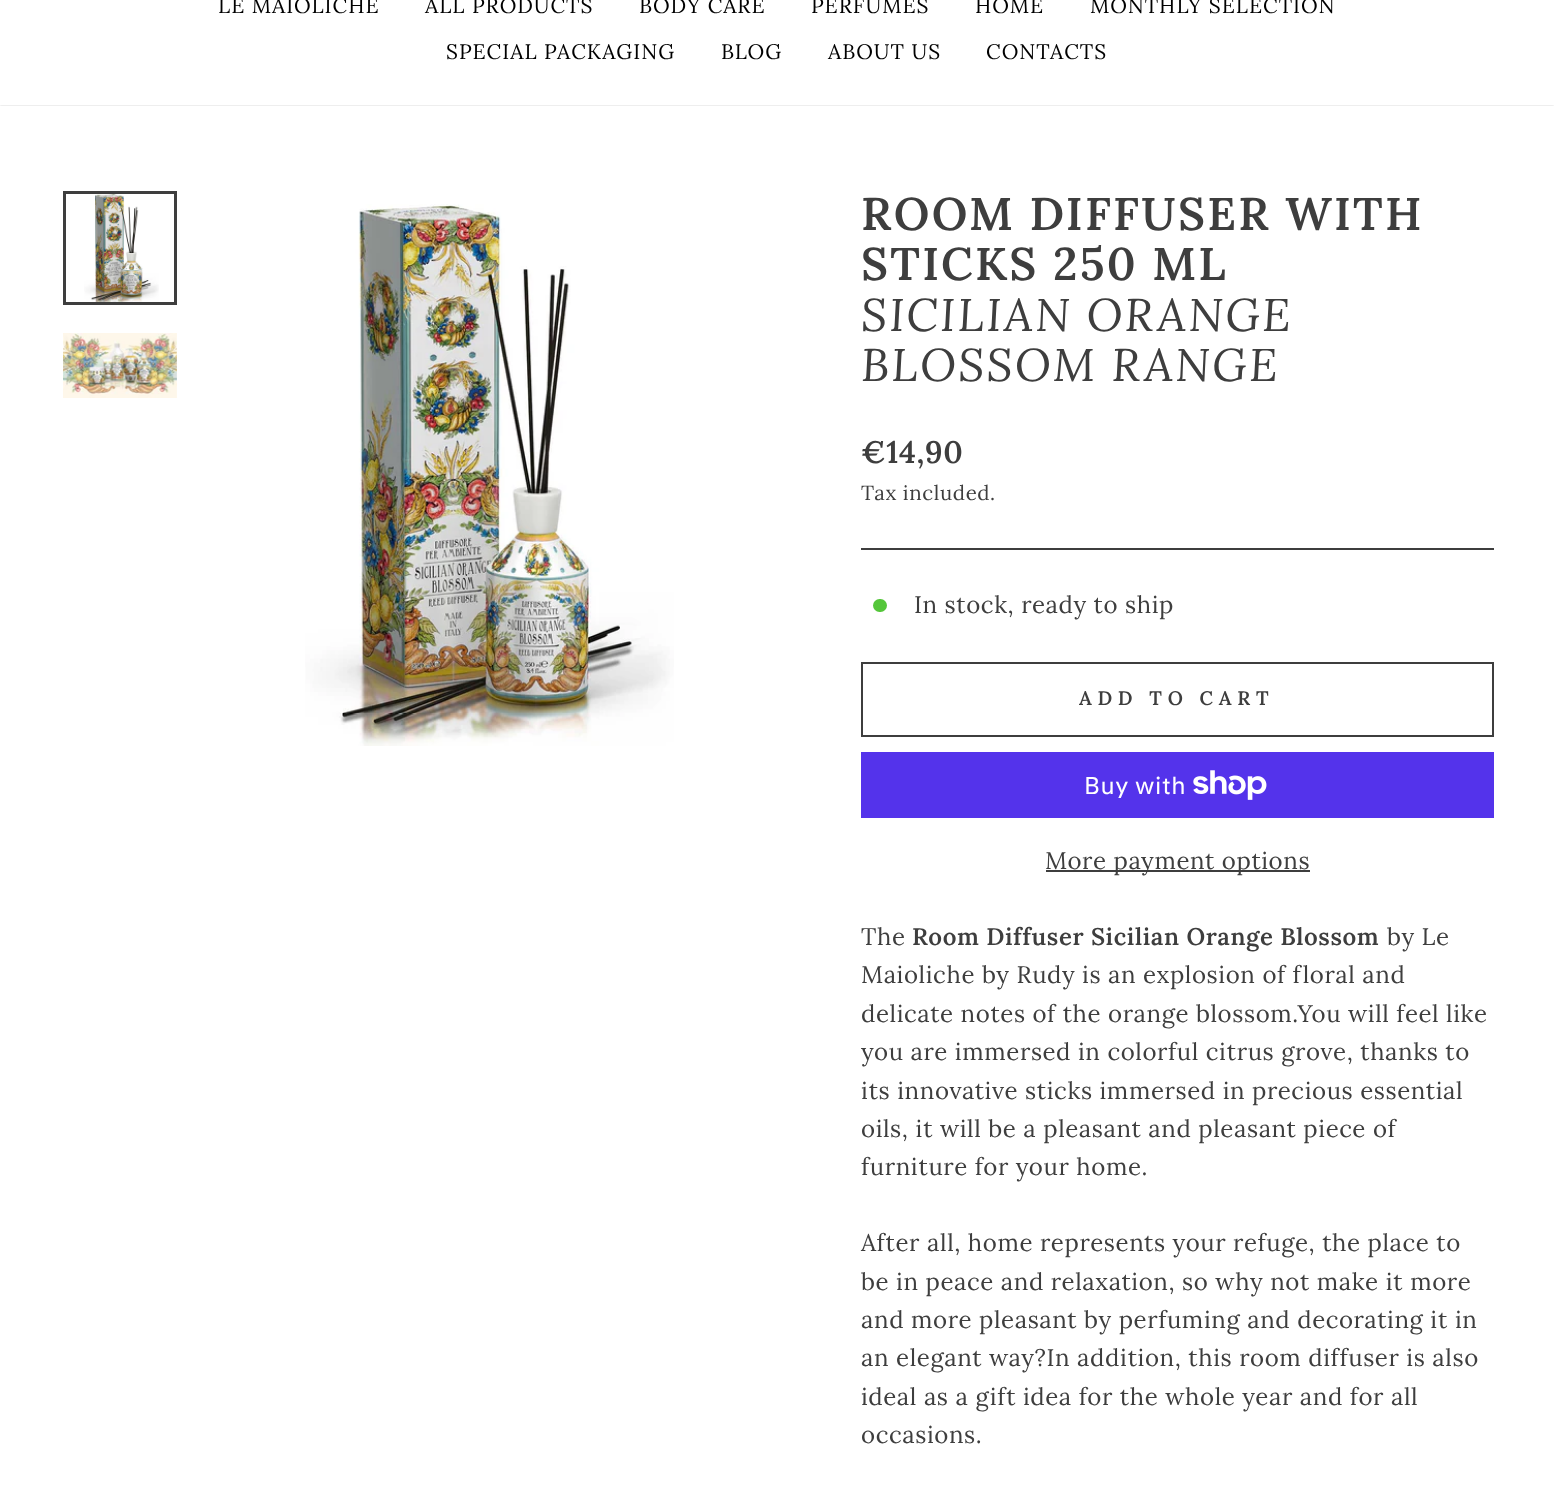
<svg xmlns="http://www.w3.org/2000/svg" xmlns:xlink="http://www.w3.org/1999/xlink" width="1554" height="1507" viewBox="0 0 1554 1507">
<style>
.cls-1{font:21px Lora;letter-spacing:1px;fill:#000000}
.cls-2{font:600 45.9px Lora;letter-spacing:2.25px;fill:#3e3e3e}
.cls-3{font:italic 45.9px Lora;letter-spacing:2.25px;fill:#3e3e3e}
.cls-4{font:600 31px Lora;letter-spacing:0.6px;fill:#3e3e3e}
.cls-5{font:20.5px Lora;letter-spacing:0.6px;fill:#3e3e3e}
.cls-6{font:24px Lora;letter-spacing:0.6px;fill:#3e3e3e}
.cls-7{font:600 19.5px Lora;letter-spacing:5.8px;fill:#3e3e3e}
.cls-8{font:24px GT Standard;letter-spacing:0.6px;fill:#ffffff}
.cls-9{font:600 24px Lora;letter-spacing:0.6px;fill:#3e3e3e}
</style>
<defs>
<clipPath id="clip1"><rect x="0" y="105" width="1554" height="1"/></clipPath>
</defs>
<rect width="100%" height="100%" fill="#ffffff"/>
<g clip-path="url(#clip1)">
<rect fill="#000000" fill-opacity="0.2" filter="blur(1px)" x="0" y="-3" width="1554" height="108"/>
</g>
<image xlink:href="image0.png" x="84" y="194" width="75" height="108"/>
<rect fill="none" stroke="#3e3e3e" stroke-width="3" x="64.5" y="192.5" width="111" height="111"/>
<image xlink:href="image1.png" x="63" y="333" width="114" height="65"/>
<image xlink:href="image2.png" x="305" y="204" width="369" height="542"/>
<rect fill="#3e3e3e" x="861" y="548" width="633" height="2"/>
<rect fill="#54c63a" x="873" y="599" width="14" height="13" rx="6.5"/>
<rect fill="none" stroke="#3e3e3e" stroke-width="2" x="862" y="663" width="631" height="73"/>
<rect fill="#5433eb" x="861" y="752" width="633" height="66"/>
<image xlink:href="image3.png" x="1193" y="770" width="74" height="30"/>
<rect fill="#3e3e3e" x="1046" y="870" width="264" height="2"/>
<text class="cls-1" x="218" y="13">LE MAIOLICHE</text>
<text class="cls-1" x="425" y="13">ALL PRODUCTS</text>
<text class="cls-1" x="639" y="13">BODY CARE</text>
<text class="cls-1" x="811" y="13">PERFUMES</text>
<text class="cls-1" x="975" y="13">HOME</text>
<text class="cls-1" x="1090" y="13">MONTHLY SELECTION</text>
<text class="cls-1" x="446" y="59">SPECIAL PACKAGING</text>
<text class="cls-1" x="721" y="59">BLOG</text>
<text class="cls-1" x="828" y="59">ABOUT US</text>
<text class="cls-1" x="986" y="59">CONTACTS</text>
<text class="cls-2"><tspan x="861" y="230">ROOM DIFFUSER WITH</tspan><tspan x="861" y="280">STICKS 250 ML</tspan></text>
<text class="cls-3"><tspan x="861" y="331">SICILIAN ORANGE</tspan><tspan x="861" y="381">BLOSSOM RANGE</tspan></text>
<text class="cls-4" x="861" y="463">€14,90</text>
<text class="cls-5" x="861" y="500">Tax included.</text>
<text class="cls-6" x="914" y="613">In stock, ready to ship</text>
<text class="cls-7" x="1079" y="705">ADD TO CART</text>
<text class="cls-8" x="1084" y="794">Buy with</text>
<text class="cls-6" x="1045" y="869">More payment options</text>
<text class="cls-6" x="861" y="945">The</text>
<text class="cls-9" x="912" y="945">Room Diffuser Sicilian Orange Blossom</text>
<text class="cls-6" x="1387" y="945">by Le</text>
<text class="cls-6"><tspan x="861" y="983">Maioliche by Rudy is an explosion of floral and</tspan><tspan x="861" y="1022">delicate notes of the orange blossom.You will feel like</tspan><tspan x="861" y="1060">you are immersed in colorful citrus grove, thanks to</tspan><tspan x="861" y="1099">its innovative sticks immersed in precious essential</tspan><tspan x="861" y="1137">oils, it will be a pleasant and pleasant piece of</tspan><tspan x="861" y="1175">furniture for your home.</tspan></text>
<text class="cls-6"><tspan x="861" y="1251">After all, home represents your refuge, the place to</tspan><tspan x="861" y="1290">be in peace and relaxation, so why not make it more</tspan><tspan x="861" y="1328">and more pleasant by perfuming and decorating it in</tspan><tspan x="861" y="1366">an elegant way?In addition, this room diffuser is also</tspan><tspan x="861" y="1405">ideal as a gift idea for the whole year and for all</tspan><tspan x="861" y="1443">occasions.</tspan></text>
</svg>
